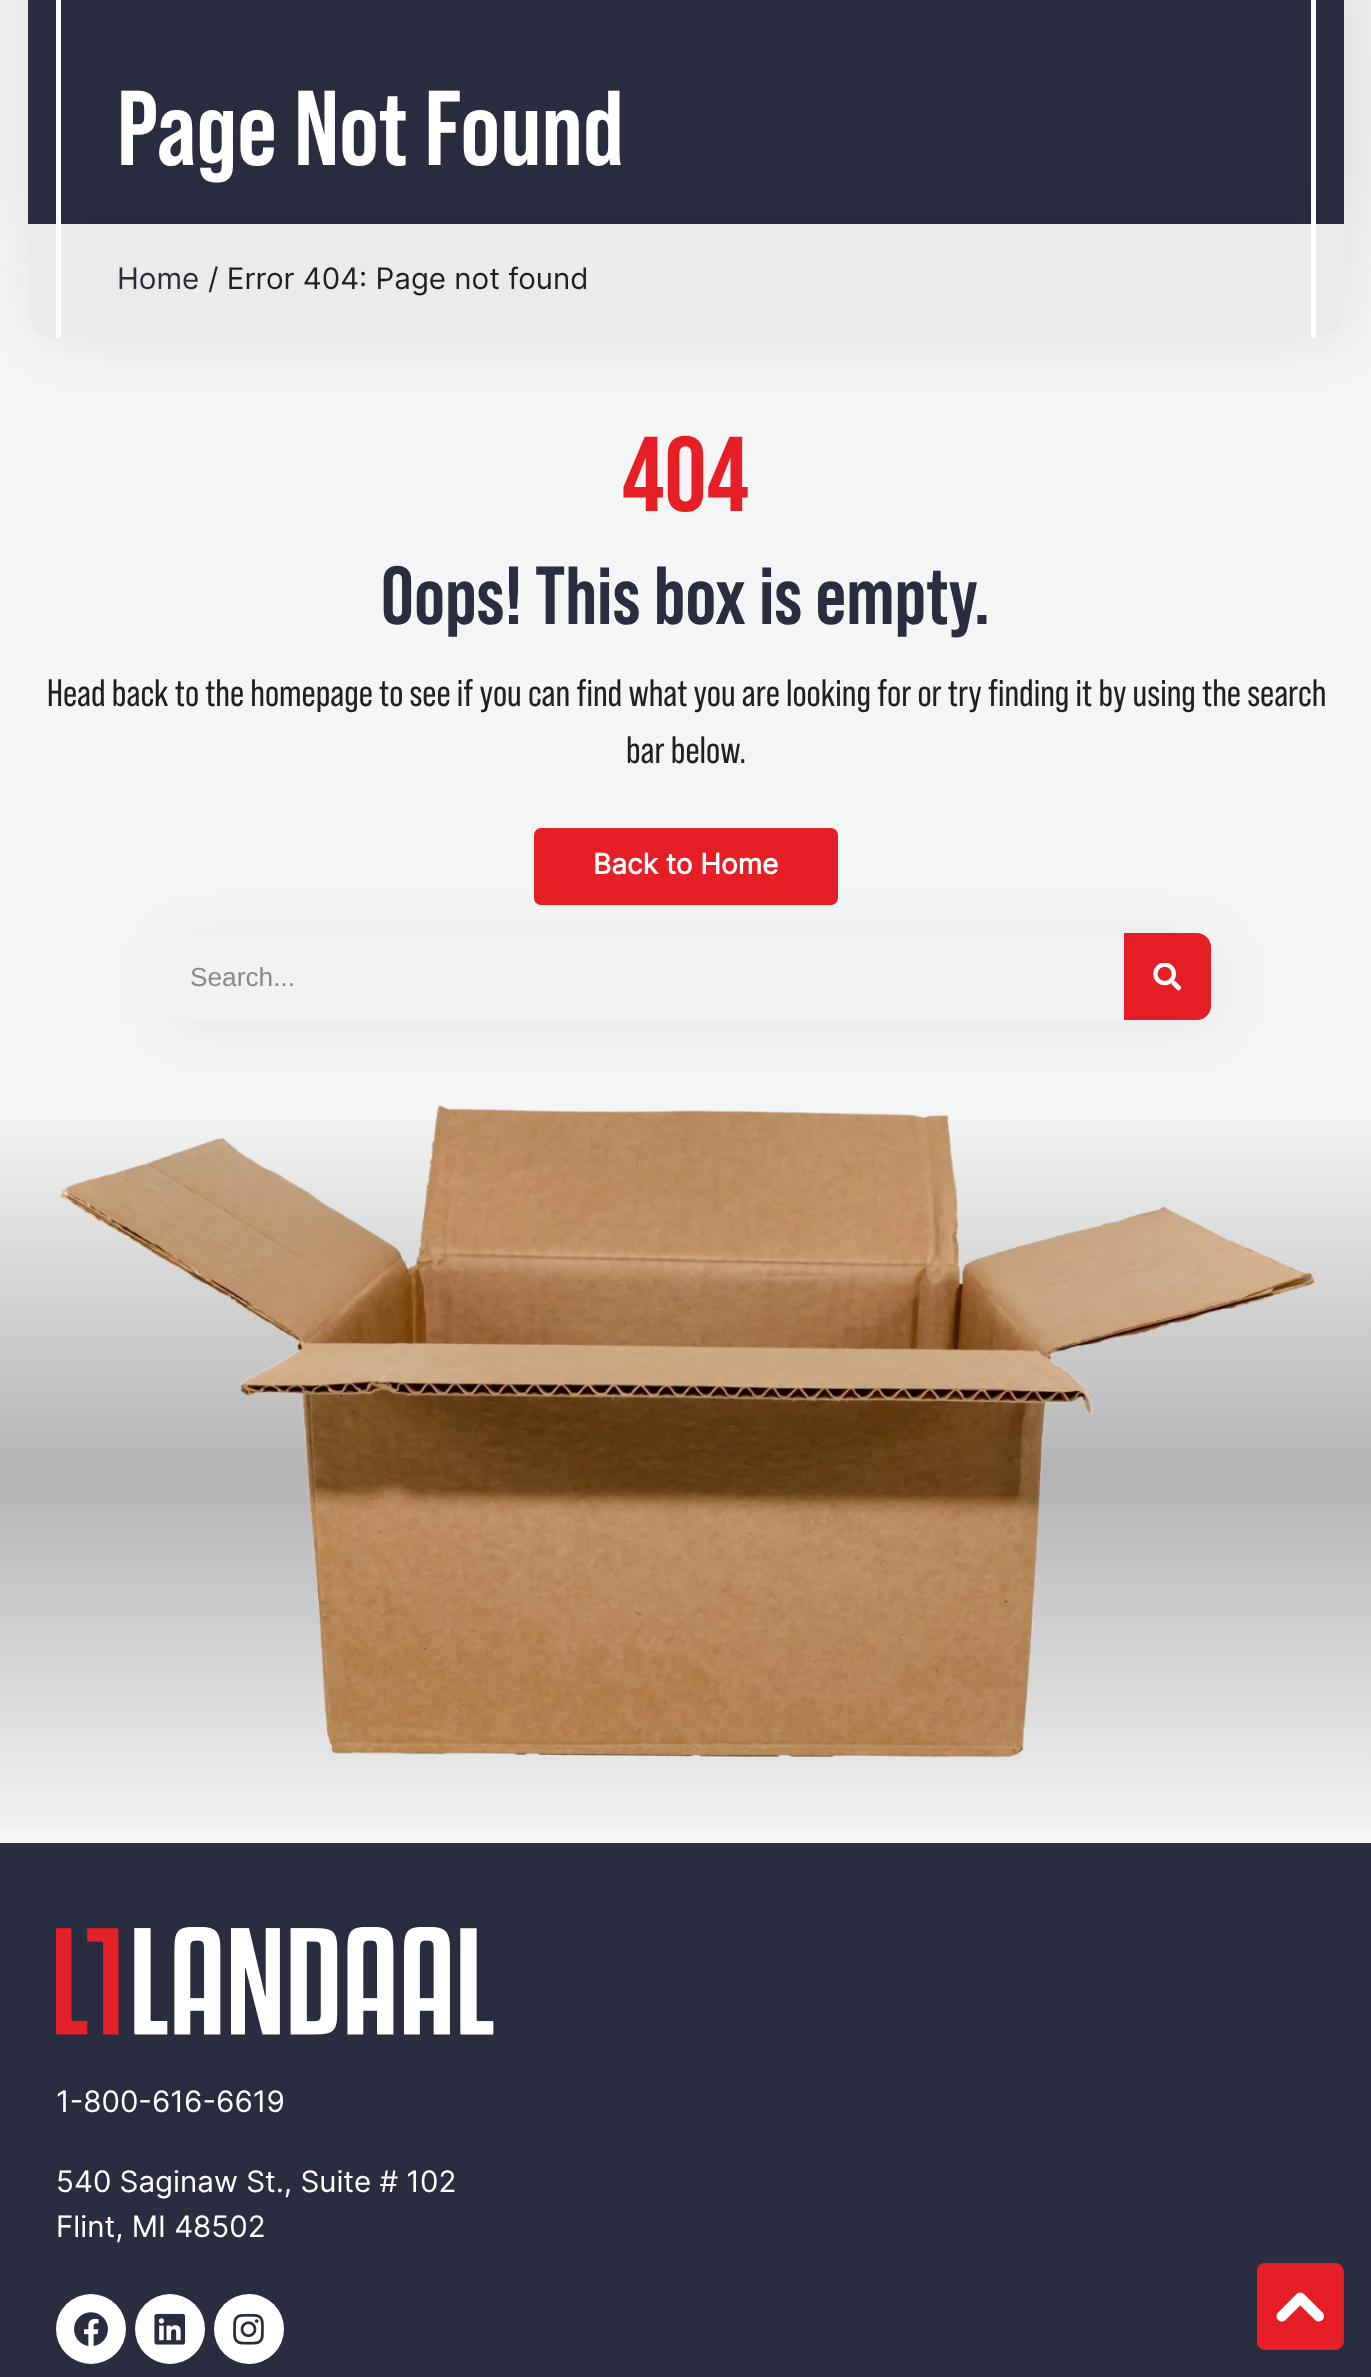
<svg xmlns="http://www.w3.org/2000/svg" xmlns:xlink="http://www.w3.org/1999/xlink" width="1371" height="2377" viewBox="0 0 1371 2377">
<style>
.cls-1{font:bold 106px Bebas Neue;fill:#ffffff}
.cls-2{font:29.5px Inter;fill:#2a2c3f}
.cls-3{font:29.5px Inter;fill:#231f20}
.cls-4{font:bold 106px Bebas Neue;fill:#e61e26}
.cls-5{font:bold 82px Bebas Neue;fill:#2a2c3f}
.cls-6{font:38.1px Bebas Neue;fill:#231f20}
.cls-7{font:bold 28px Inter;fill:#ffffff}
.cls-8{font:26.25px Liberation Sans;fill:#868a8e}
.cls-9{font:29.5px Inter;fill:#ffffff}
</style>
<defs>
<linearGradient id="g1" gradientUnits="userSpaceOnUse" x1="686" y1="1104" x2="686" y2="1843"><stop offset="0" stop-color="#727272" stop-opacity="0"/><stop offset="0.5" stop-color="#727272" stop-opacity="0.5"/><stop offset="1" stop-color="#727272" stop-opacity="0"/></linearGradient>
</defs>
<rect width="100%" height="100%" fill="#f4f5f5"/>
<rect fill="#000000" fill-opacity="0.07" filter="blur(70px)" x="46" y="-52" width="1316" height="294" rx="28"/>
<rect fill="#000000" fill-opacity="0.05" filter="blur(29px)" x="35" y="-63" width="1316" height="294" rx="28"/>
<rect fill="#2a2c3f" x="28" y="0" width="1316" height="224"/>
<path fill="#ffffff" fill-rule="evenodd" d="M63-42H1309C1313-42 1316-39 1316-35V224H56V-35C56-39 59-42 63-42ZM63-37H1309C1310-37 1311-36 1311-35V224H61V-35C61-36 62-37 63-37Z"/>
<rect fill="#000000" fill-opacity="0.05" filter="blur(29px)" x="35" y="231" width="1316" height="114" rx="28"/>
<path fill="#eaebeb" d="M28 224H1344V310C1344 325.5 1331.5 338 1316 338H56C40.5 338 28 325.5 28 310Z"/>
<rect fill="#ffffff" x="1311" y="224" width="5" height="114"/>
<rect fill="#ffffff" x="56" y="224" width="5" height="114"/>
<rect fill="#e61e26" stroke="#e61e26" stroke-width="4" x="536" y="830" width="300" height="73" rx="5"/>
<rect fill="#000000" fill-opacity="0.05" filter="blur(29px)" x="168" y="940" width="1050" height="87" rx="14"/>
<rect fill="#f1f2f3" x="161" y="933" width="1050" height="87" rx="14"/>
<path fill="#e61e26" d="M1124 933H1197C1204.5 933 1211 939.5 1211 947V1006C1211 1013.5 1204.5 1020 1197 1020H1124Z"/>
<image xlink:href="image0.png" x="1153" y="963" width="28" height="28"/>
<rect fill="url(#g1)" x="0" y="1120" width="1371" height="707"/>
<image xlink:href="image1.png" x="58" y="1105" width="1258" height="653"/>
<rect fill="#2a2c3f" x="0" y="1843" width="1371" height="534"/>
<image xlink:href="image2.png" x="56" y="1927" width="438" height="108"/>
<circle fill="#ffffff" cx="91" cy="2329" r="35"/>
<image xlink:href="image3.png" x="74" y="2312" width="34" height="34"/>
<circle fill="#ffffff" cx="170" cy="2329" r="35"/>
<image xlink:href="image4.png" x="154" y="2313" width="32" height="32"/>
<circle fill="#ffffff" cx="249" cy="2329" r="35"/>
<image xlink:href="image5.png" x="233" y="2313" width="31" height="32"/>
<image xlink:href="image6.png" x="1257" y="2263" width="87" height="87"/>
<text class="cls-1" x="117" y="165">Page Not Found</text>
<text class="cls-2" x="117" y="289">Home</text>
<text class="cls-3" x="208" y="289">/ Error 404: Page not found</text>
<text class="cls-4" x="622" y="511">404</text>
<text class="cls-5" x="381" y="624">Oops! This box is empty.</text>
<text class="cls-6" x="47" y="706">Head back to the homepage to see if you can find what you are looking for or try finding it by using the search</text>
<text class="cls-6" x="626" y="763">bar below.</text>
<text class="cls-7" x="593" y="874">Back to Home</text>
<text class="cls-8" x="190" y="986">Search...</text>
<text class="cls-9" x="56" y="2112">1-800-616-6619</text>
<text class="cls-9"><tspan x="56" y="2192">540 Saginaw St., Suite # 102</tspan><tspan x="56" y="2237">Flint, MI 48502</tspan></text>
</svg>
